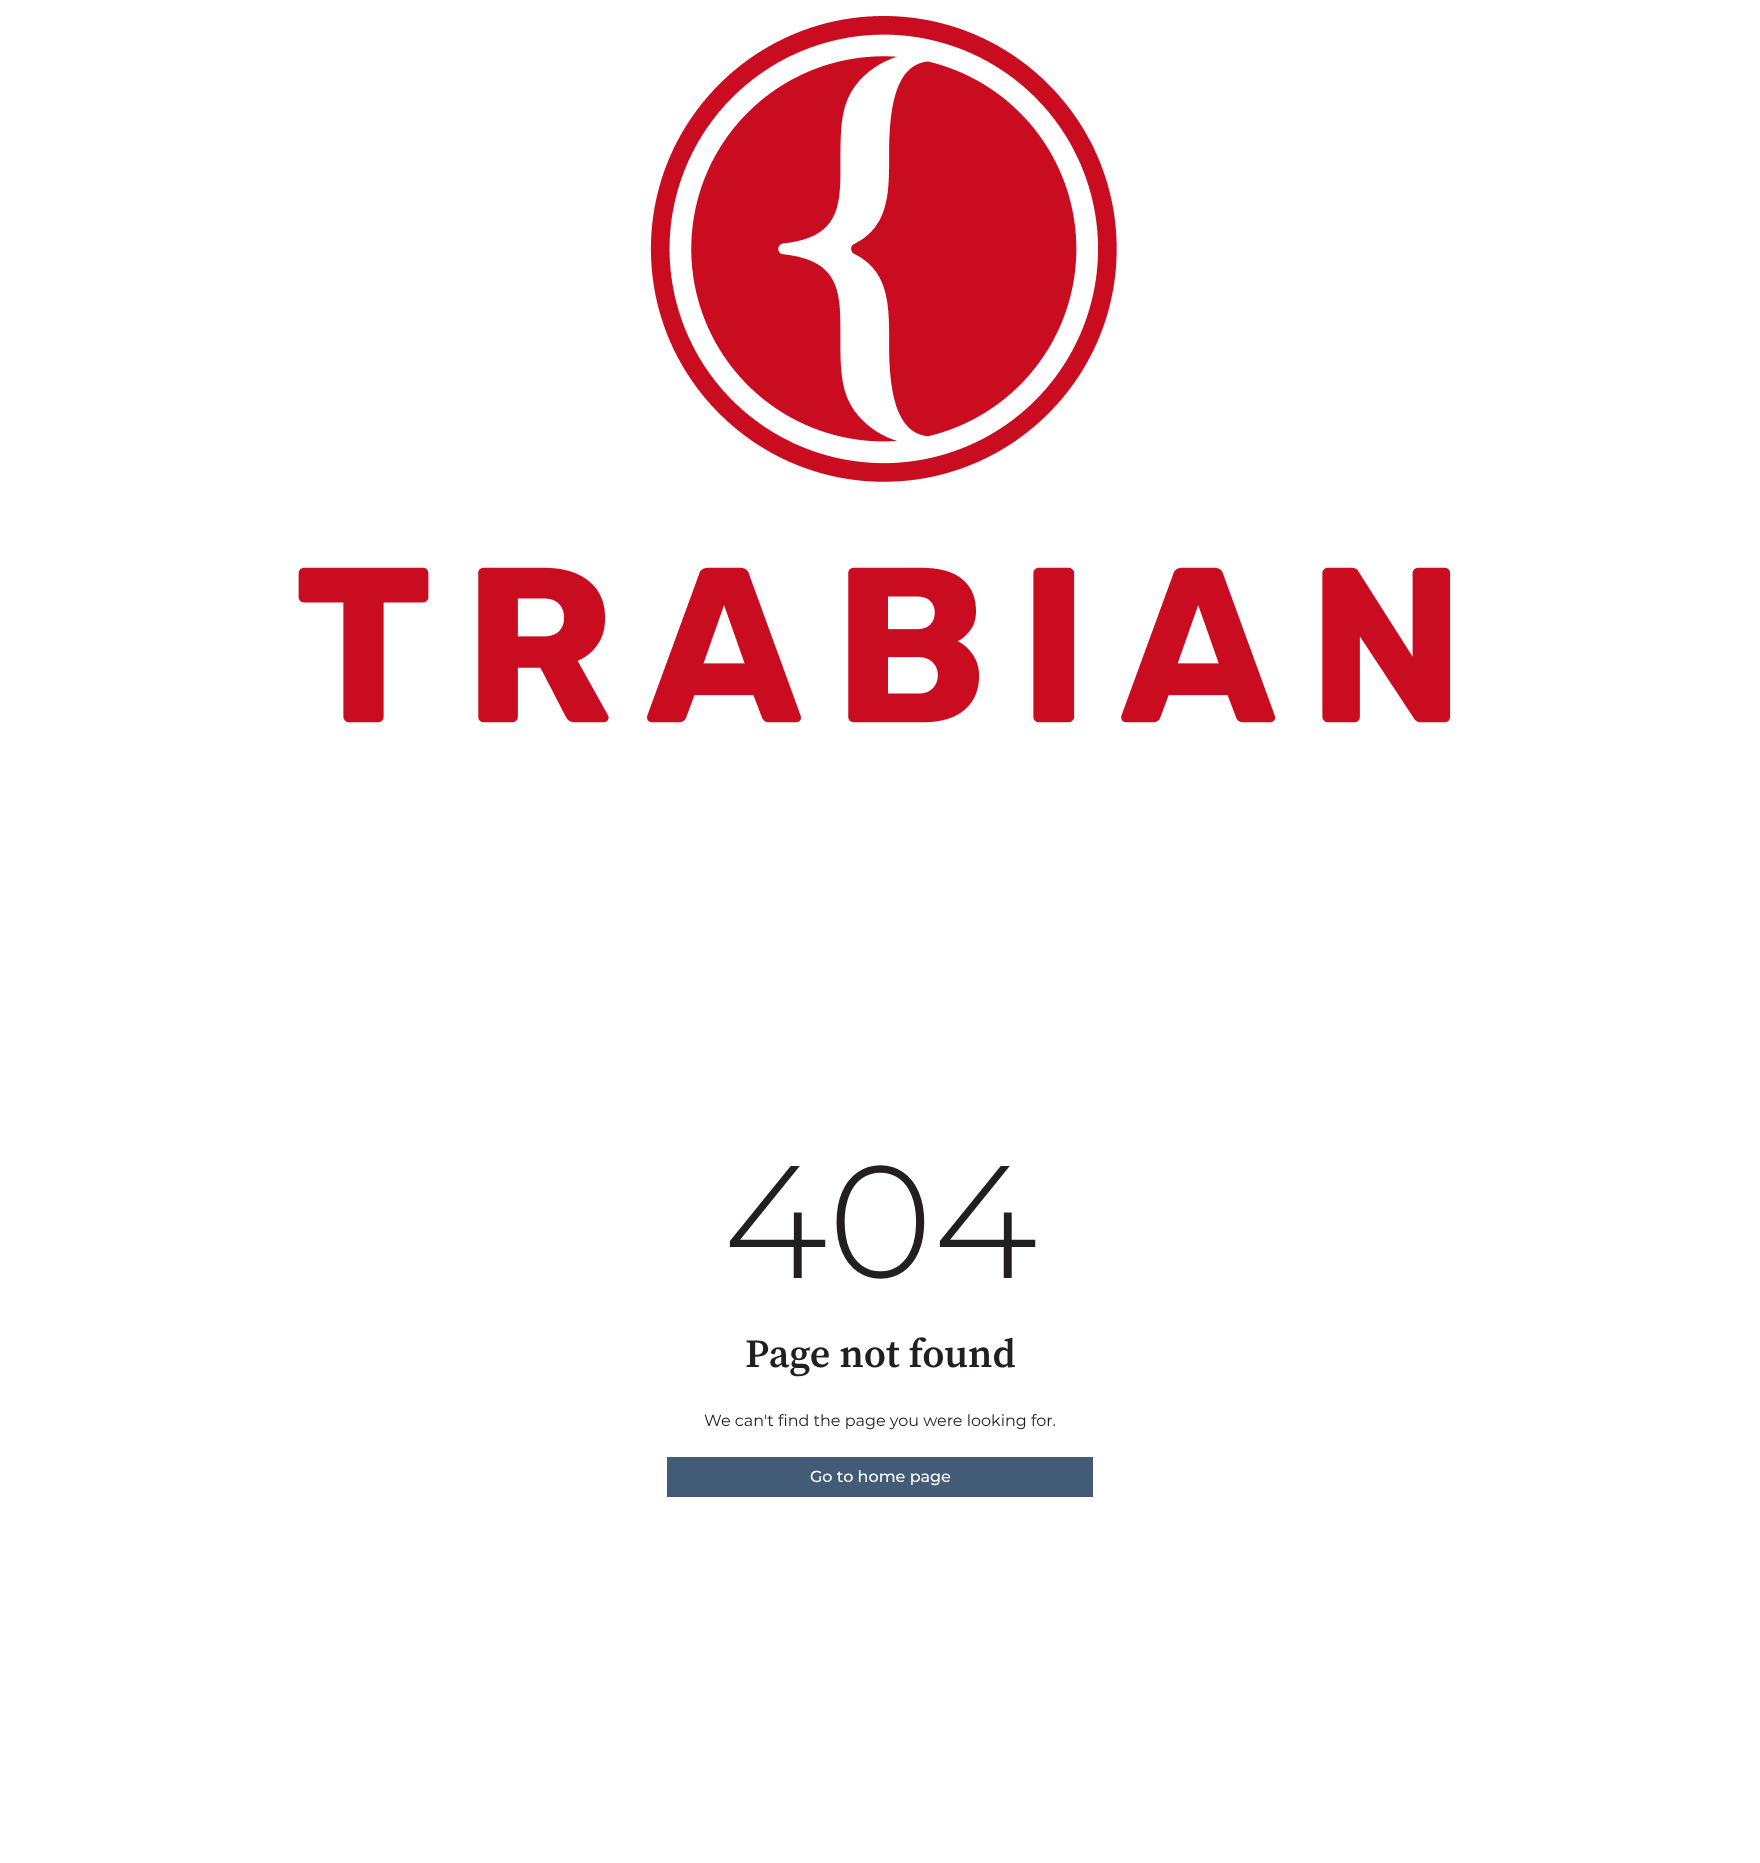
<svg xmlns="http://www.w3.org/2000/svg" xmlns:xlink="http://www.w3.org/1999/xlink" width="1760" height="1863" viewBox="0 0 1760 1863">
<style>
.cls-1{font:300 160px Montserrat;fill:#231f20}
.cls-2{font:600 40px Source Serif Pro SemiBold;fill:#231f20}
.cls-3{font:16px Montserrat;fill:#231f20}
.cls-4{font:500 16px Montserrat;fill:#ffffff}
</style>
<rect width="100%" height="100%" fill="#ffffff"/>
<image xlink:href="image0.png" x="298" y="16" width="1153" height="707"/>
<rect fill="#425b76" x="667" y="1457" width="426" height="40"/>
<text class="cls-1" x="723" y="1278">404</text>
<text class="cls-2" x="745" y="1367">Page not found</text>
<text class="cls-3" x="704" y="1426">We can't find the page you were looking for.</text>
<text class="cls-4" x="810" y="1482">Go to home page</text>
</svg>
